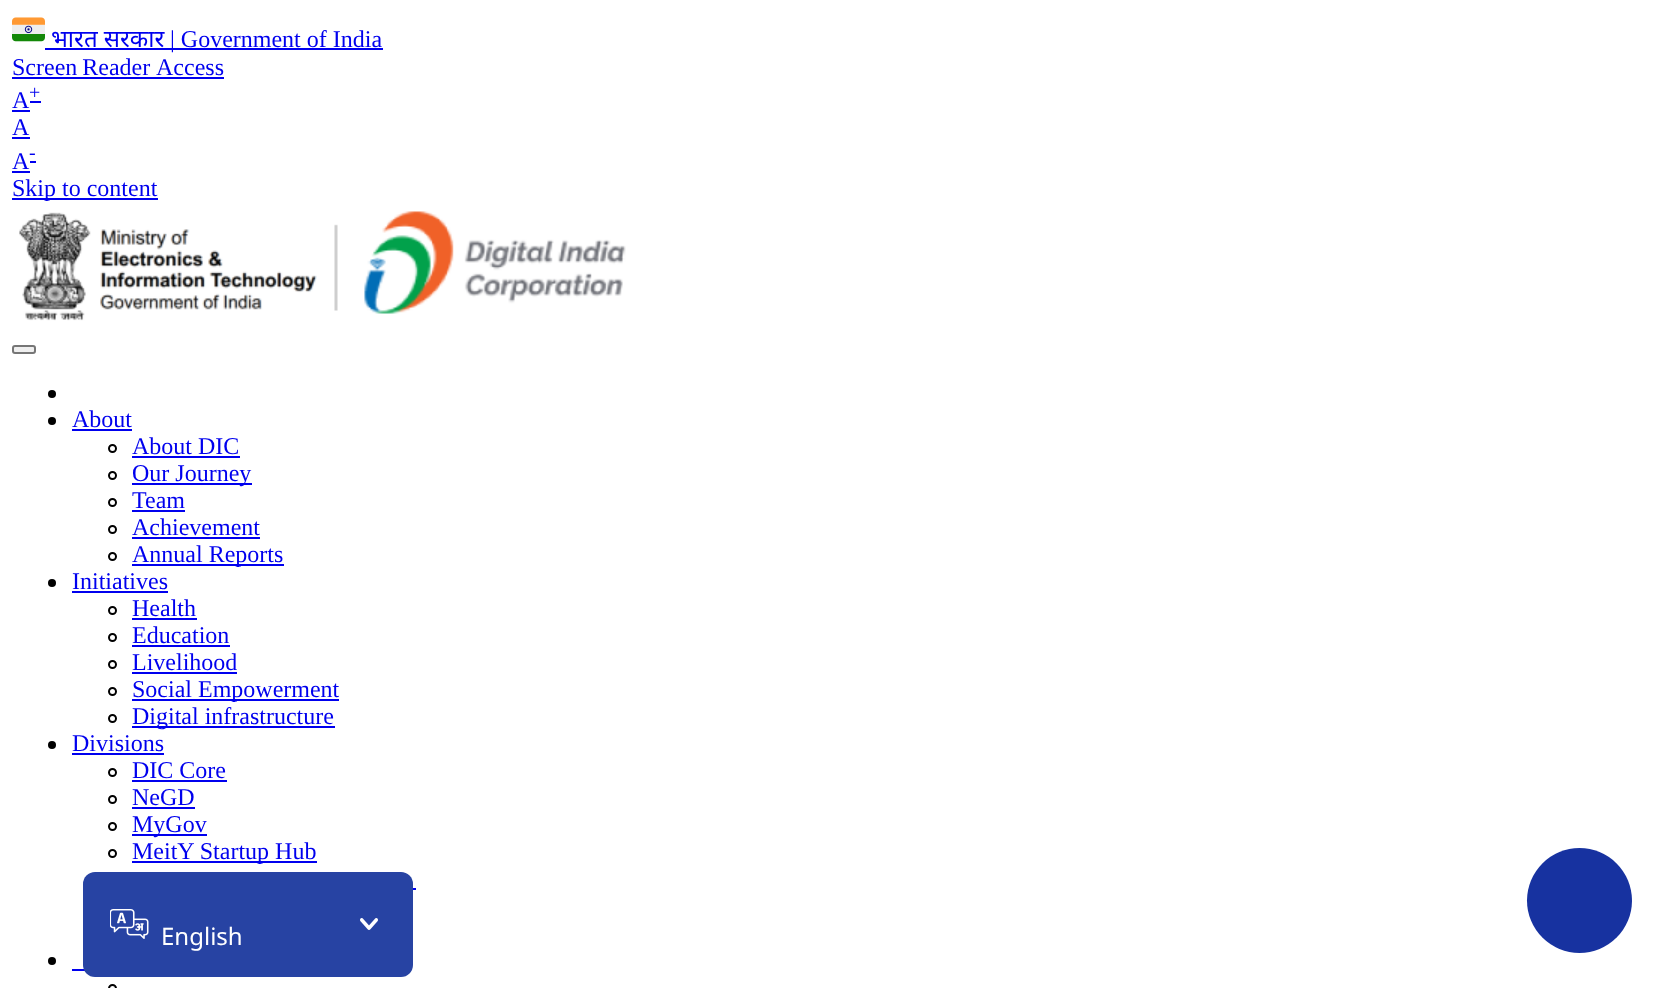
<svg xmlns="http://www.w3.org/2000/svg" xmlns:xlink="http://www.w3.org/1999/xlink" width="1661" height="988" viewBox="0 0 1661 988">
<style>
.cls-1{font:24px Noto Sans;fill:#0000ee}
.cls-2{font:24px Liberation Serif;fill:#0000ee}
.cls-3{font:20px Liberation Serif;fill:#0000ee}
.cls-4{font:24px 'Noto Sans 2';fill:#ffffff}
</style>
<rect width="100%" height="100%" fill="#ffffff"/>
<image xlink:href="image0.png" x="12" y="17" width="33" height="25"/>
<rect fill="#0000ee" x="45" y="48" width="338" height="2"/>
<rect fill="#0000ee" x="12" y="77" width="212" height="2"/>
<rect fill="#0000ee" x="12" y="110" width="18" height="2"/>
<rect fill="#0000ee" x="30" y="101" width="11" height="2"/>
<rect fill="#0000ee" x="12" y="137" width="18" height="2"/>
<rect fill="#0000ee" x="12" y="171" width="18" height="2"/>
<rect fill="#0000ee" x="30" y="161" width="6" height="2"/>
<rect fill="#0000ee" x="12" y="198" width="146" height="2"/>
<rect fill="#0000ee" x="72" y="969" width="13" height="2"/>
<rect fill="#2743a3" x="83" y="872" width="330" height="105" rx="12"/>
<image xlink:href="image1.png" x="360" y="918" width="18" height="12"/>
<image xlink:href="image2.png" x="110" y="909" width="39" height="30"/>
<image xlink:href="image3.png" x="19" y="211" width="607" height="110"/>
<rect fill="#efefef" stroke="#767676" stroke-width="2" x="13" y="346" width="22" height="7" rx="2"/>
<circle fill="#000000" cx="52" cy="394" r="4"/>
<circle fill="#000000" cx="52" cy="421" r="4"/>
<rect fill="#0000ee" x="72" y="429" width="60" height="2"/>
<circle fill="none" stroke="#000000" stroke-width="2" cx="112.5" cy="448.5" r="3.5"/>
<rect fill="#0000ee" x="132" y="456" width="108" height="2"/>
<circle fill="none" stroke="#000000" stroke-width="2" cx="112.5" cy="475.5" r="3.5"/>
<rect fill="#0000ee" x="132" y="483" width="120" height="2"/>
<circle fill="none" stroke="#000000" stroke-width="2" cx="112.5" cy="502.5" r="3.5"/>
<rect fill="#0000ee" x="132" y="510" width="53" height="2"/>
<circle fill="none" stroke="#000000" stroke-width="2" cx="112.5" cy="529.5" r="3.5"/>
<rect fill="#0000ee" x="132" y="537" width="128" height="2"/>
<circle fill="none" stroke="#000000" stroke-width="2" cx="112.5" cy="556.5" r="3.5"/>
<rect fill="#0000ee" x="132" y="564" width="152" height="2"/>
<circle fill="#000000" cx="52" cy="583" r="4"/>
<rect fill="#0000ee" x="72" y="591" width="96" height="2"/>
<circle fill="none" stroke="#000000" stroke-width="2" cx="112.5" cy="610.5" r="3.5"/>
<rect fill="#0000ee" x="132" y="618" width="65" height="2"/>
<circle fill="none" stroke="#000000" stroke-width="2" cx="112.5" cy="637.5" r="3.5"/>
<rect fill="#0000ee" x="132" y="645" width="98" height="2"/>
<circle fill="none" stroke="#000000" stroke-width="2" cx="112.5" cy="664.5" r="3.5"/>
<rect fill="#0000ee" x="132" y="672" width="105" height="2"/>
<circle fill="none" stroke="#000000" stroke-width="2" cx="112.5" cy="691.5" r="3.5"/>
<rect fill="#0000ee" x="132" y="699" width="207" height="2"/>
<circle fill="none" stroke="#000000" stroke-width="2" cx="112.5" cy="718.5" r="3.5"/>
<rect fill="#0000ee" x="132" y="726" width="203" height="2"/>
<circle fill="#000000" cx="52" cy="745" r="4"/>
<rect fill="#0000ee" x="72" y="753" width="92" height="2"/>
<circle fill="none" stroke="#000000" stroke-width="2" cx="112.5" cy="772.5" r="3.5"/>
<rect fill="#0000ee" x="132" y="780" width="95" height="2"/>
<circle fill="none" stroke="#000000" stroke-width="2" cx="112.5" cy="799.5" r="3.5"/>
<rect fill="#0000ee" x="132" y="807" width="63" height="2"/>
<circle fill="none" stroke="#000000" stroke-width="2" cx="112.5" cy="826.5" r="3.5"/>
<rect fill="#0000ee" x="132" y="834" width="75" height="2"/>
<circle fill="none" stroke="#000000" stroke-width="2" cx="112.5" cy="853.5" r="3.5"/>
<rect fill="#0000ee" x="132" y="861" width="185" height="2"/>
<rect fill="#0000ee" x="413" y="888" width="3" height="2"/>
<circle fill="#000000" cx="52" cy="961" r="4"/>
<circle fill="none" stroke="#000000" stroke-width="2" cx="112.5" cy="988.5" r="3.5"/>
<circle fill="#1732a0" cx="1579.5" cy="900.5" r="52.5"/>
<text class="cls-1" x="51" y="47">भारत सरकार</text>
<text class="cls-2" x="170" y="47">| Government of India</text>
<text class="cls-2" x="12" y="75" word-spacing="-1">Screen Reader</text>
<text class="cls-2" x="156" y="75">Access</text>
<text class="cls-2" x="12" y="108">A</text>
<text class="cls-3" x="29" y="99">+</text>
<text class="cls-2"><tspan x="12" y="135">A</tspan><tspan x="12" y="169">A</tspan></text>
<text class="cls-3" x="29" y="159">-</text>
<text class="cls-2" x="12" y="196">Skip to content</text>
<text class="cls-4" x="161" y="945">English</text>
<text class="cls-2" x="72" y="427">About</text>
<text class="cls-2"><tspan x="132" y="454">About DIC</tspan><tspan x="132" y="481">Our Journey</tspan><tspan x="132" y="508">Team</tspan><tspan x="132" y="535">Achievement</tspan><tspan x="132" y="562">Annual Reports</tspan></text>
<text class="cls-2" x="72" y="589">Initiatives</text>
<text class="cls-2"><tspan x="132" y="616">Health</tspan><tspan x="132" y="643">Education</tspan><tspan x="132" y="670">Livelihood</tspan><tspan x="132" y="697">Social Empowerment</tspan><tspan x="132" y="724">Digital infrastructure</tspan></text>
<text class="cls-2" x="72" y="751">Divisions</text>
<text class="cls-2"><tspan x="132" y="778">DIC Core</tspan><tspan x="132" y="805">NeGD</tspan><tspan x="132" y="832">MyGov</tspan><tspan x="132" y="859">MeitY Startup Hub</tspan></text>
</svg>
